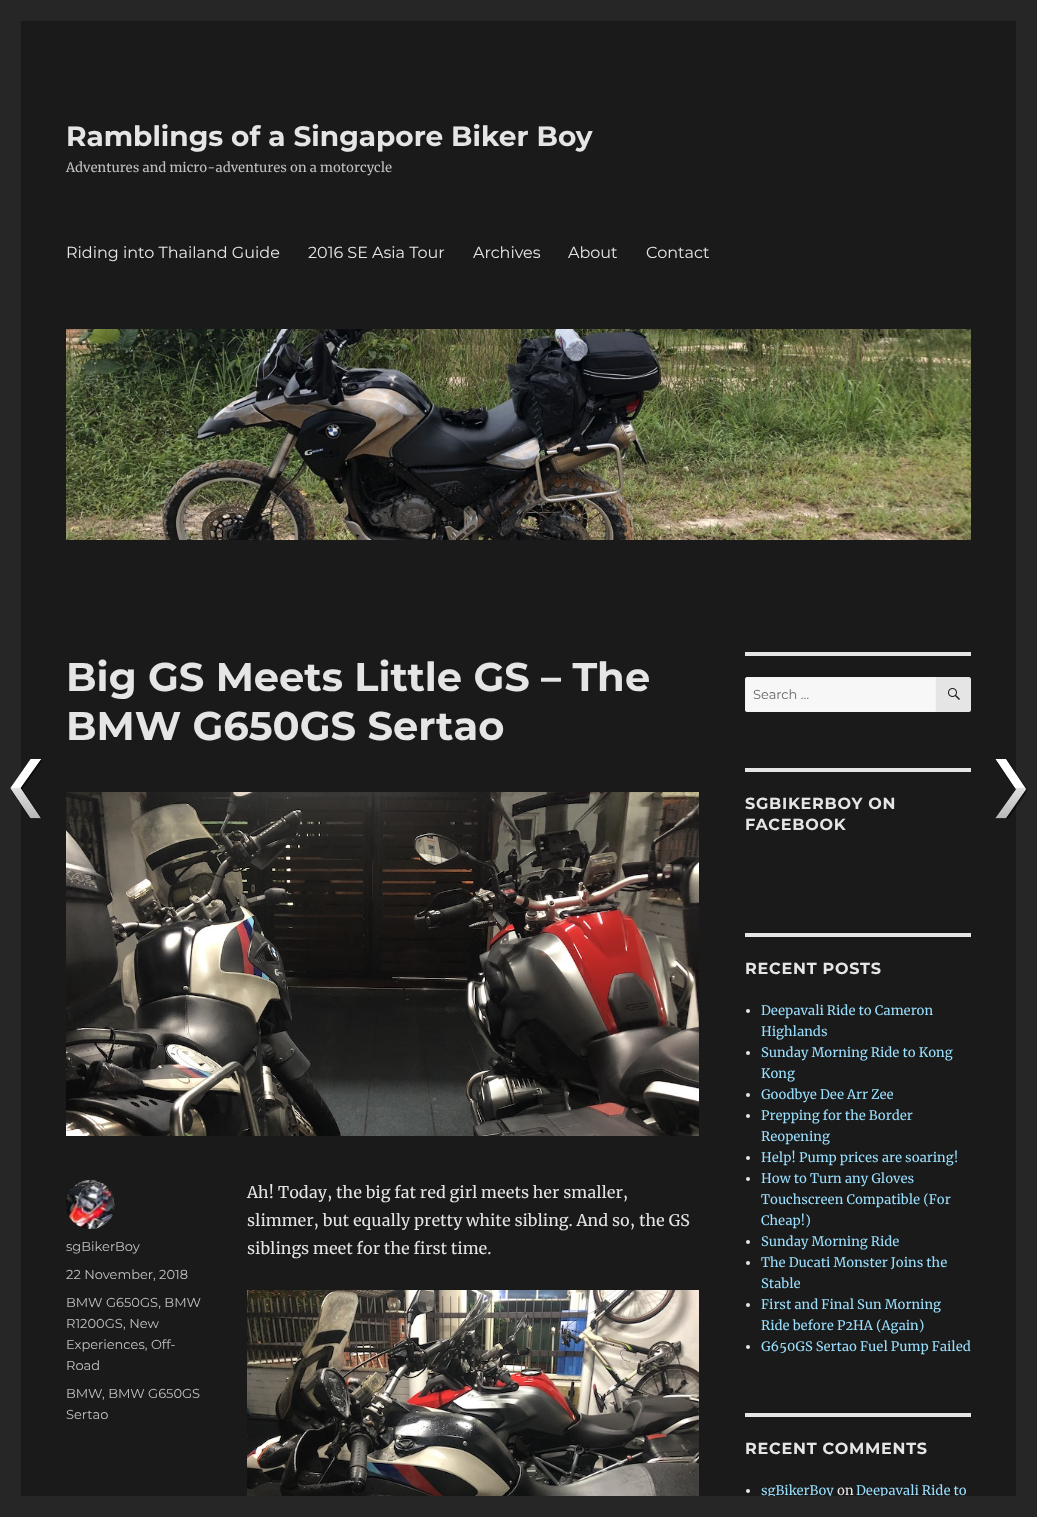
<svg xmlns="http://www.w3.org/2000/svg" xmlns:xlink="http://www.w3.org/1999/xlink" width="1037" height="1517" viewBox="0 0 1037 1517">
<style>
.cls-1{font:100 28px Montserrat;fill:#e5e5e5}
.cls-2{font:13px Merriweather;fill:#c1c1c1}
.cls-3{font:100 16px 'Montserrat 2';fill:#e5e5e5}
.cls-4{font:100 40px Montserrat;fill:#e5e5e5}
.cls-5{font:16px Merriweather;fill:#e5e5e5}
.cls-6{font:100 13px 'Montserrat 2';fill:#c1c1c1}
.cls-7{font:100 13px 'Montserrat 2';fill:#686868}
.cls-8{font:100 16px Montserrat;letter-spacing:0.75px;fill:#e5e5e5}
.cls-9{font:13px Merriweather;fill:#9adffd}
.cls-10{font:13px Merriweather;fill:#e5e5e5}
</style>
<rect width="100%" height="100%" fill="#262626"/>
<rect fill="#1a1a1a" x="21" y="21" width="995" height="1475"/>
<image xlink:href="image0.png" x="10" y="759" width="32" height="60"/>
<image xlink:href="image1.png" x="66" y="329" width="905" height="211"/>
<image xlink:href="image2.png" x="66" y="792" width="633" height="344"/>
<image xlink:href="image3.png" x="247" y="1290" width="452" height="206"/>
<image xlink:href="image4.png" x="66" y="1180" width="49" height="49"/>
<rect fill="#e5e5e5" x="745" y="652" width="226" height="4"/>
<path fill="#f7f7f7" d="M747 677H936V712H747C746 712 745 711 745 710V679C745 678 746 677 747 677Z"/>
<path fill="none" stroke="#e5e5e5" stroke-opacity="0.2" d="M747 677.5H935.5V711.5H747C746 711.5 745.5 711 745.5 710V679C745.5 678 746 677.5 747 677.5Z"/>
<path fill="#e5e5e5" d="M936 677H969C970 677 971 678 971 679V710C971 711 970 712 969 712H936Z"/>
<image xlink:href="image5.png" x="948" y="688" width="12" height="12"/>
<rect fill="#e5e5e5" x="745" y="768" width="226" height="4"/>
<rect fill="#e5e5e5" x="745" y="933" width="226" height="4"/>
<circle fill="#e5e5e5" cx="748" cy="1011" r="2"/>
<circle fill="#e5e5e5" cx="748" cy="1053" r="2"/>
<circle fill="#e5e5e5" cx="748" cy="1095" r="2"/>
<circle fill="#e5e5e5" cx="748" cy="1116" r="2"/>
<circle fill="#e5e5e5" cx="748" cy="1158" r="2"/>
<circle fill="#e5e5e5" cx="748" cy="1179" r="2"/>
<circle fill="#e5e5e5" cx="748" cy="1242" r="2"/>
<circle fill="#e5e5e5" cx="748" cy="1263" r="2"/>
<circle fill="#e5e5e5" cx="748" cy="1305" r="2"/>
<circle fill="#e5e5e5" cx="748" cy="1347" r="2"/>
<rect fill="#e5e5e5" x="745" y="1413" width="226" height="4"/>
<circle fill="#e5e5e5" cx="748" cy="1491" r="2"/>
<image xlink:href="image6.png" x="995" y="759" width="32" height="60"/>
<text class="cls-1" x="66" y="146">Ramblings of a Singapore Biker Boy</text>
<text class="cls-2" x="66" y="172">Adventures and micro-adventures on a motorcycle</text>
<text class="cls-3" x="66" y="258">Riding into Thailand Guide</text>
<text class="cls-3" x="308" y="258">2016 SE Asia Tour</text>
<text class="cls-3" x="473" y="258">Archives</text>
<text class="cls-3" x="568" y="258">About</text>
<text class="cls-3" x="646" y="258">Contact</text>
<text class="cls-4"><tspan x="66" y="691">Big GS Meets Little GS – The</tspan><tspan x="66" y="740">BMW G650GS Sertao</tspan></text>
<text class="cls-5"><tspan x="247" y="1198">Ah! Today, the big fat red girl meets her smaller,</tspan><tspan x="247" y="1226">slimmer, but equally pretty white sibling. And so, the GS</tspan><tspan x="247" y="1254">siblings meet for the first time.</tspan></text>
<text class="cls-6" x="66" y="1251">sgBikerBoy</text>
<text class="cls-6" x="66" y="1279">22 November, 2018</text>
<text class="cls-6"><tspan x="66" y="1307">BMW G650GS, BMW</tspan><tspan x="66" y="1328">R1200GS, New</tspan><tspan x="66" y="1349">Experiences, Off-</tspan><tspan x="66" y="1370">Road</tspan></text>
<text class="cls-6" x="66" y="1398">BMW</text>
<text class="cls-6" x="102" y="1398">, BMW G650GS</text>
<text class="cls-6" x="66" y="1419">Sertao</text>
<text class="cls-7" x="753" y="699">Search …</text>
<text class="cls-8"><tspan x="745" y="809">SGBIKERBOY ON</tspan><tspan x="745" y="830">FACEBOOK</tspan></text>
<text class="cls-8" x="745" y="974">RECENT POSTS</text>
<text class="cls-9"><tspan x="761" y="1015">Deepavali Ride to Cameron</tspan><tspan x="761" y="1036">Highlands</tspan><tspan x="761" y="1057">Sunday Morning Ride to Kong</tspan><tspan x="761" y="1078">Kong</tspan><tspan x="761" y="1099">Goodbye Dee Arr Zee</tspan><tspan x="761" y="1120">Prepping for the Border</tspan><tspan x="761" y="1141">Reopening</tspan><tspan x="761" y="1162">Help! Pump prices are soaring!</tspan><tspan x="761" y="1183">How to Turn any Gloves</tspan><tspan x="761" y="1204">Touchscreen Compatible (For</tspan><tspan x="761" y="1225">Cheap!)</tspan><tspan x="761" y="1246">Sunday Morning Ride</tspan><tspan x="761" y="1267">The Ducati Monster Joins the</tspan><tspan x="761" y="1288">Stable</tspan><tspan x="761" y="1309">First and Final Sun Morning</tspan><tspan x="761" y="1330">Ride before P2HA (Again)</tspan><tspan x="761" y="1351">G650GS Sertao Fuel Pump Failed</tspan></text>
<text class="cls-8" x="745" y="1454">RECENT COMMENTS</text>
<text class="cls-9" x="761" y="1495">sgBikerBoy</text>
<text class="cls-10" x="837" y="1495">on</text>
<text class="cls-9" x="856" y="1495">Deepavali Ride to</text>
<rect fill="#262626" x="768" y="1496" width="117" height="3"/>
</svg>
